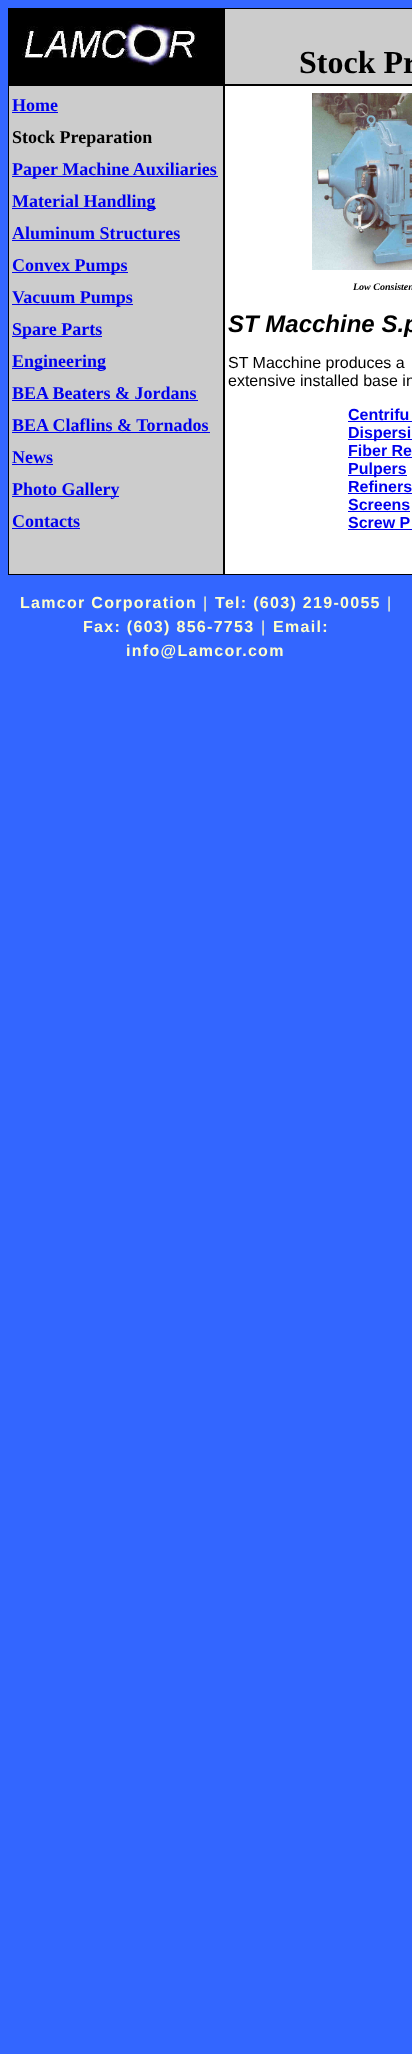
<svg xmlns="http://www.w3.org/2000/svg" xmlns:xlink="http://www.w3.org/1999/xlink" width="412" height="2054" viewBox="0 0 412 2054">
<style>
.cls-1{font:bold 32px Liberation Serif;fill:#000000}
.cls-2{font:bold 18px Liberation Serif;fill:#0000ee}
.cls-3{font:bold 18px Liberation Serif;fill:#000000}
.cls-4{font:italic bold 10px Liberation Serif;fill:#000000}
.cls-5{font:italic bold 24px Liberation Sans;fill:#000000}
.cls-6{font:16px Liberation Sans;fill:#000000}
.cls-7{font:bold 16px Liberation Sans;fill:#0000ee}
.cls-8{font:bold 16px Liberation Sans;letter-spacing:1.3px;fill:#ffffcc}
.cls-9{font:16px Liberation Sans;letter-spacing:1.3px;fill:#ffffcc}
</style>
<rect width="100%" height="100%" fill="#3366ff"/>
<rect fill="#000000" x="8" y="8" width="216" height="77"/>
<image xlink:href="image0.png" x="22" y="21" width="175" height="46"/>
<rect fill="#cccccc" stroke="#000000" x="224.5" y="8.5" width="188" height="76"/>
<rect fill="#cccccc" stroke="#000000" x="8.5" y="85.5" width="215" height="489"/>
<rect fill="#0000ee" x="12" y="112" width="46" height="1"/>
<rect fill="#0000ee" x="12" y="176" width="206" height="1"/>
<rect fill="#0000ee" x="12" y="208" width="144" height="1"/>
<rect fill="#0000ee" x="12" y="240" width="168" height="1"/>
<rect fill="#0000ee" x="12" y="272" width="116" height="1"/>
<rect fill="#0000ee" x="12" y="304" width="121" height="1"/>
<rect fill="#0000ee" x="12" y="336" width="90" height="1"/>
<rect fill="#0000ee" x="12" y="368" width="94" height="1"/>
<rect fill="#0000ee" x="12" y="400" width="186" height="1"/>
<rect fill="#0000ee" x="12" y="432" width="198" height="1"/>
<rect fill="#0000ee" x="12" y="464" width="41" height="1"/>
<rect fill="#0000ee" x="12" y="496" width="107" height="1"/>
<rect fill="#0000ee" x="12" y="528" width="68" height="1"/>
<rect fill="#ffffff" stroke="#000000" x="224.5" y="85.5" width="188" height="489"/>
<image xlink:href="image1.png" x="312" y="93" width="100" height="177"/>
<rect fill="#0000ee" x="348" y="421" width="64" height="1"/>
<rect fill="#0000ee" x="348" y="439" width="64" height="1"/>
<rect fill="#0000ee" x="348" y="457" width="64" height="1"/>
<rect fill="#0000ee" x="348" y="475" width="59" height="1"/>
<rect fill="#0000ee" x="348" y="493" width="64" height="1"/>
<rect fill="#0000ee" x="348" y="511" width="62" height="1"/>
<rect fill="#0000ee" x="348" y="529" width="64" height="1"/>
<text class="cls-1" x="299" y="73">Stock Pr</text>
<text class="cls-2" x="12" y="111">Home</text>
<text class="cls-3" x="12" y="143">Stock Preparation</text>
<text class="cls-2"><tspan x="12" y="175">Paper Machine Auxiliaries</tspan><tspan x="12" y="207">Material Handling</tspan><tspan x="12" y="239">Aluminum Structures</tspan><tspan x="12" y="271">Convex Pumps</tspan><tspan x="12" y="303">Vacuum Pumps</tspan><tspan x="12" y="335">Spare Parts</tspan><tspan x="12" y="367">Engineering</tspan><tspan x="12" y="399">BEA Beaters &amp; Jordans</tspan><tspan x="12" y="431">BEA Claflins &amp; Tornados</tspan><tspan x="12" y="463">News</tspan><tspan x="12" y="495">Photo Gallery</tspan><tspan x="12" y="527">Contacts</tspan></text>
<text class="cls-4" x="353" y="290">Low Consisten</text>
<text class="cls-5" x="228" y="332">ST Macchine S.p</text>
<text class="cls-6"><tspan x="228" y="368">ST Macchine produces a</tspan><tspan x="228" y="386">extensive installed base in</tspan></text>
<text class="cls-7"><tspan x="348" y="420">Centrifu</tspan><tspan x="348" y="438">Dispersi</tspan><tspan x="348" y="456">Fiber Re</tspan><tspan x="348" y="474">Pulpers</tspan><tspan x="348" y="492">Refiners</tspan><tspan x="348" y="510">Screens</tspan><tspan x="348" y="528">Screw P</tspan></text>
<text class="cls-8" x="20" y="608">Lamcor Corporation</text>
<text class="cls-9" x="203" y="608">|</text>
<text class="cls-8" x="215" y="608">Tel: (603) 219-0055</text>
<text class="cls-9" x="387" y="608">|</text>
<text class="cls-8" x="83" y="632">Fax: (603) 856-7753</text>
<text class="cls-9" x="261" y="632">|</text>
<text class="cls-8" x="273" y="632">Email:</text>
<text class="cls-8" x="126" y="656">info@Lamcor.com</text>
</svg>
